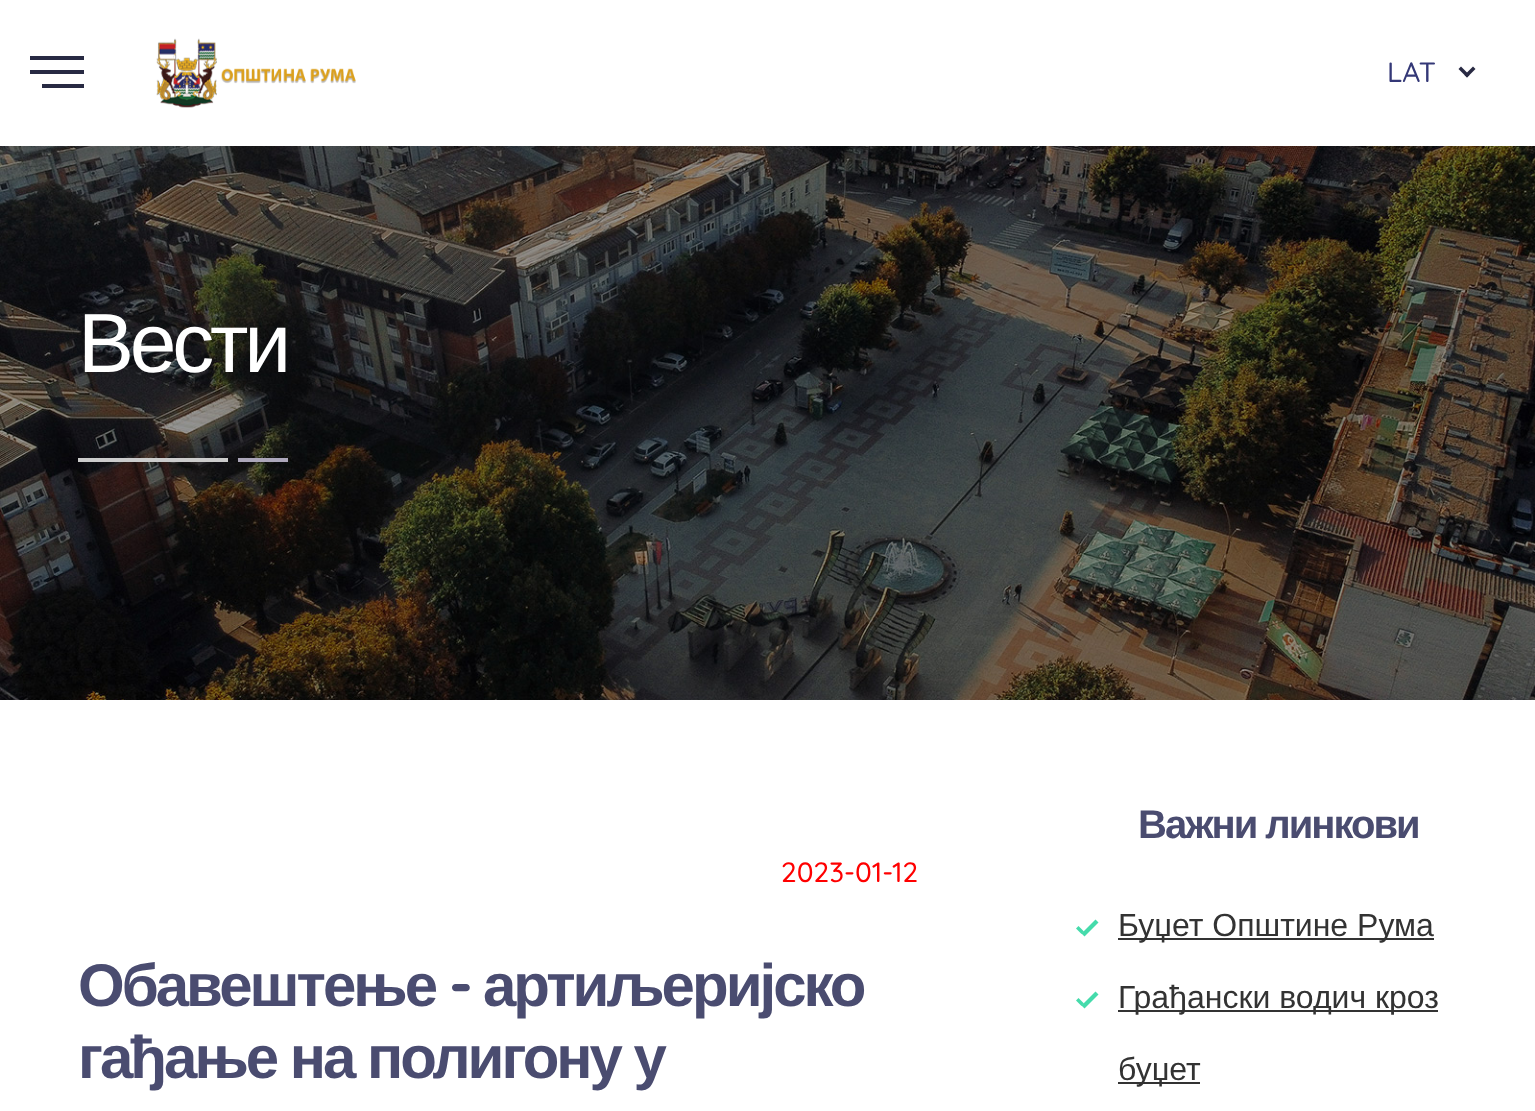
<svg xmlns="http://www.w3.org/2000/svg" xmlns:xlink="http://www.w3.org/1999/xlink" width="1535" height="1111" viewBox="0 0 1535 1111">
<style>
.cls-1{font:500 28px Quicksand;fill:#343877}
.cls-2{font:84px Liberation Sans;letter-spacing:-4.25px;fill:#ffffff}
.cls-3{font:500 28px Quicksand;fill:#ff0000}
.cls-4{font:bold 60px Liberation Sans;letter-spacing:-3px;fill:#4a4c70}
.cls-5{font:bold 60px Quicksand;letter-spacing:-3px;fill:#4a4c70}
.cls-6{font:bold 40px Liberation Sans;letter-spacing:-2px;fill:#4a4c70}
.cls-7{font:32px Liberation Sans;fill:#333333}
</style>
<rect width="100%" height="100%" fill="#ffffff"/>
<image xlink:href="image1.png" x="0" y="146" width="1535" height="554"/>
<rect fill="#000000" fill-opacity="0.04" filter="blur(10px)" x="-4" y="2" width="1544" height="154"/>
<rect fill="#ffffff" x="0" y="0" width="1535" height="146"/>
<rect fill="#282a43" x="30" y="56" width="54" height="4"/>
<rect fill="#282a43" x="30" y="70" width="54" height="4"/>
<rect fill="#282a43" x="42" y="84" width="42" height="4"/>
<image xlink:href="image0.png" x="156" y="38" width="200" height="70"/>
<path fill="#282a43" d="M1461 66.5L1469.5 75L1467 77.5L1458.5 69Z"/>
<path fill="#282a43" d="M1464.5 75L1473 66.5L1475.5 69L1467 77.5Z"/>
<rect fill="#cccccc" x="78" y="458" width="150" height="4"/>
<rect fill="#aca7ba" x="238" y="458" width="50" height="4"/>
<path fill="#45dbab" d="M1095.5 919.5L1098.5 922.5L1084.5 936.5L1081.5 933.5Z"/>
<path fill="#45dbab" d="M1076 928.5L1078.5 926L1084 931.5L1081.5 934Z"/>
<rect fill="#333333" x="1118" y="938" width="316" height="2"/>
<path fill="#45dbab" d="M1095.5 991.5L1098.5 994.5L1084.5 1008.5L1081.5 1005.5Z"/>
<path fill="#45dbab" d="M1076 1000.5L1078.5 998L1084 1003.5L1081.5 1006Z"/>
<rect fill="#333333" x="1118" y="1010" width="320" height="2"/>
<rect fill="#333333" x="1118" y="1082" width="82" height="2"/>
<text class="cls-1" x="1387" y="82">LAT</text>
<text class="cls-2" x="78" y="372">Вести</text>
<text class="cls-3" x="781" y="882">2023-01-12</text>
<text class="cls-4" x="78" y="1006">Обавештење</text>
<text class="cls-5" x="449" y="1006">-</text>
<text class="cls-4" x="483" y="1006">артиљеријско</text>
<text class="cls-4" x="78" y="1078">гађање на полигону у</text>
<text class="cls-6" x="1138" y="838">Важни линкови</text>
<text class="cls-7" x="1118" y="936">Буџет Општине Рума</text>
<text class="cls-7" x="1118" y="1008">Грађански водич кроз</text>
<text class="cls-7" x="1118" y="1080">буџет</text>
</svg>
